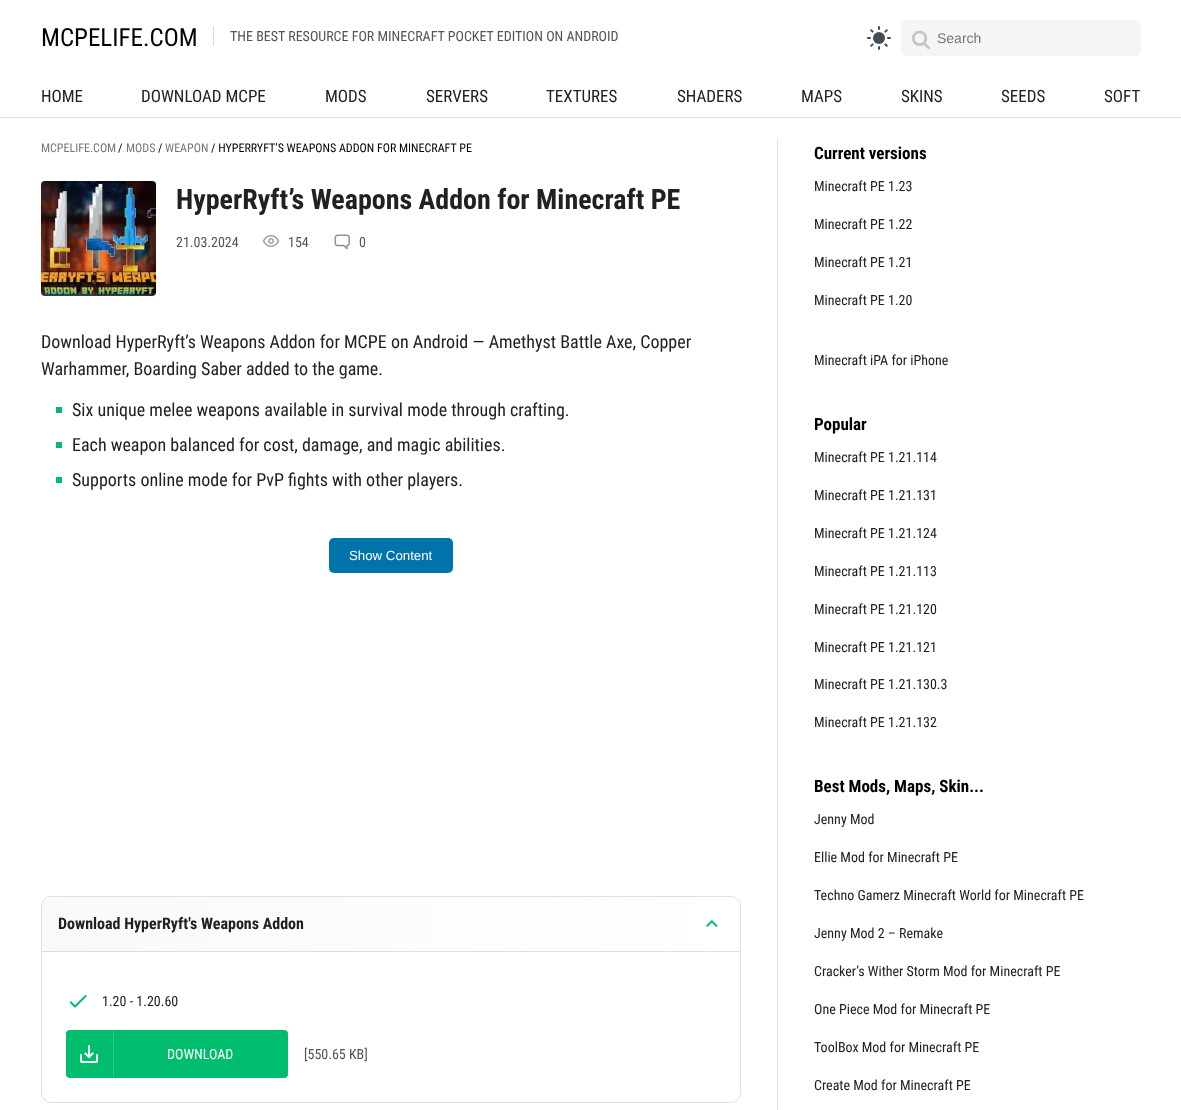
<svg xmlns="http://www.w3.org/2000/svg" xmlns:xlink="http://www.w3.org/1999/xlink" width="1181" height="1110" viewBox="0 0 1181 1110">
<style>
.cls-1{font:25px Roboto Condensed;fill:#000000}
.cls-2{font:14px Roboto Condensed;fill:#545454}
.cls-3{font:14px Liberation Sans;fill:#757575}
.cls-4{font:17px Roboto Condensed;fill:#212121}
.cls-5{font:12px Roboto Condensed;fill:#757575}
.cls-6{font:12px Roboto Condensed;fill:#000000}
.cls-7{font:bold 28px Roboto Condensed;fill:#212121}
.cls-8{font:18px Roboto Condensed;fill:#212121}
.cls-9{font:13.25px Liberation Sans;fill:#ffffff}
.cls-10{font:bold 16px Roboto Condensed;fill:#212121}
.cls-11{font:14px Roboto Condensed;fill:#212121}
.cls-12{font:14px Roboto Condensed;fill:#ffffff}
.cls-13{font:bold 17px Roboto Condensed;fill:#000000}
</style>
<defs>
<linearGradient id="g1" gradientUnits="userSpaceOnUse" x1="42" y1="924" x2="740" y2="924"><stop offset="0" stop-color="#f9f9f9"/><stop offset="1" stop-color="#ffffff"/></linearGradient>
<linearGradient id="g2" gradientUnits="userSpaceOnUse" x1="42" y1="924" x2="740" y2="924"><stop offset="0" stop-color="#dbdbdb"/><stop offset="1" stop-color="#e0e0e0"/></linearGradient>
</defs>
<rect width="100%" height="100%" fill="#ffffff"/>
<rect fill="#d8d8d8" x="213" y="26" width="1" height="20"/>
<image xlink:href="image0.png" x="867" y="26" width="24" height="24"/>
<rect fill="#f5f5f5" x="901" y="20" width="240" height="36" rx="6"/>
<image xlink:href="image1.png" x="912" y="30" width="18" height="20"/>
<rect fill="#e0e0e0" x="0" y="117" width="1181" height="1"/>
<rect fill="#e0e0e0" x="777" y="139" width="1" height="971"/>
<image xlink:href="image2.png" x="41" y="181" width="115" height="115"/>
<image xlink:href="image3.png" x="262" y="235" width="18" height="12"/>
<image xlink:href="image4.png" x="334" y="234" width="16" height="16"/>
<rect fill="#00bd6e" x="56" y="407" width="6" height="6"/>
<rect fill="#00bd6e" x="56" y="442" width="6" height="6"/>
<rect fill="#00bd6e" x="56" y="477" width="6" height="6"/>
<rect fill="#0073aa" x="329" y="538" width="124" height="35" rx="5"/>
<rect fill="none" stroke="#e0e0e0" x="41.5" y="896.5" width="699" height="206" rx="9.5"/>
<path fill="url(#g1)" d="M52 897H730C735.5 897 740 901.5 740 907V952H42V907C42 901.5 46.5 897 52 897Z"/>
<rect fill="url(#g2)" x="42" y="951" width="698" height="1"/>
<image xlink:href="image5.png" x="706" y="920" width="12" height="7"/>
<image xlink:href="image6.png" x="69" y="995" width="18" height="13"/>
<rect fill="#00bd6e" x="66" y="1030" width="222" height="48" rx="4"/>
<rect fill="#29c885" x="113" y="1030" width="1" height="48"/>
<image xlink:href="image7.png" x="80" y="1045" width="18" height="18"/>
<text class="cls-1" x="41" y="46">MCPELIFE.COM</text>
<text class="cls-2" x="230" y="41">THE BEST RESOURCE FOR MINECRAFT POCKET EDITION ON ANDROID</text>
<text class="cls-3" x="937" y="43">Search</text>
<text class="cls-4" x="41" y="102">HOME</text>
<text class="cls-4" x="141" y="102">DOWNLOAD MCPE</text>
<text class="cls-4" x="325" y="102">MODS</text>
<text class="cls-4" x="426" y="102">SERVERS</text>
<text class="cls-4" x="546" y="102">TEXTURES</text>
<text class="cls-4" x="677" y="102">SHADERS</text>
<text class="cls-4" x="801" y="102">MAPS</text>
<text class="cls-4" x="901" y="102">SKINS</text>
<text class="cls-4" x="1001" y="102">SEEDS</text>
<text class="cls-4" x="1104" y="102">SOFT</text>
<text class="cls-5" x="41" y="152">MCPELIFE.COM</text>
<text class="cls-6" x="118" y="152">/</text>
<text class="cls-5" x="126" y="152">MODS</text>
<text class="cls-6" x="158" y="152">/</text>
<text class="cls-5" x="165" y="152">WEAPON</text>
<text class="cls-6" x="211" y="152">/ HYPERRYFT’S WEAPONS ADDON FOR MINECRAFT PE</text>
<text class="cls-7" x="176" y="209">HyperRyft’s Weapons Addon for Minecraft PE</text>
<text class="cls-2" x="176" y="247">21.03.2024</text>
<text class="cls-2" x="288" y="247">154</text>
<text class="cls-2" x="359" y="247">0</text>
<text class="cls-8"><tspan x="41" y="348">Download HyperRyft’s Weapons Addon for MCPE on Android — Amethyst Battle Axe, Copper</tspan><tspan x="41" y="375">Warhammer, Boarding Saber added to the game.</tspan></text>
<text class="cls-8"><tspan x="72" y="416">Six unique melee weapons available in survival mode through crafting.</tspan><tspan x="72" y="451">Each weapon balanced for cost, damage, and magic abilities.</tspan><tspan x="72" y="486">Supports online mode for PvP fights with other players.</tspan></text>
<text class="cls-9" x="349" y="560">Show Content</text>
<text class="cls-10" x="58" y="929">Download HyperRyft's Weapons Addon</text>
<text class="cls-11" x="102" y="1006">1.20 - 1.20.60</text>
<text class="cls-12" x="167" y="1059">DOWNLOAD</text>
<text class="cls-2" x="304" y="1059">[550.65 KB]</text>
<text class="cls-13" x="814" y="159">Current versions</text>
<text class="cls-11" x="814" y="191">Minecraft PE 1.23</text>
<text class="cls-11" x="814" y="229">Minecraft PE 1.22</text>
<text class="cls-11" x="814" y="267">Minecraft PE 1.21</text>
<text class="cls-11" x="814" y="305">Minecraft PE 1.20</text>
<text class="cls-11" x="814" y="365">Minecraft iPA for iPhone</text>
<text class="cls-13" x="814" y="430">Popular</text>
<text class="cls-11" x="814" y="462">Minecraft PE 1.21.114</text>
<text class="cls-11" x="814" y="500">Minecraft PE 1.21.131</text>
<text class="cls-11" x="814" y="538">Minecraft PE 1.21.124</text>
<text class="cls-11" x="814" y="576">Minecraft PE 1.21.113</text>
<text class="cls-11" x="814" y="614">Minecraft PE 1.21.120</text>
<text class="cls-11" x="814" y="652">Minecraft PE 1.21.121</text>
<text class="cls-11" x="814" y="689">Minecraft PE 1.21.130.3</text>
<text class="cls-11" x="814" y="727">Minecraft PE 1.21.132</text>
<text class="cls-13" x="814" y="792">Best Mods, Maps, Skin...</text>
<text class="cls-11" x="814" y="824">Jenny Mod</text>
<text class="cls-11" x="814" y="862">Ellie Mod for Minecraft PE</text>
<text class="cls-11" x="814" y="900">Techno Gamerz Minecraft World for Minecraft PE</text>
<text class="cls-11" x="814" y="938">Jenny Mod 2 – Remake</text>
<text class="cls-11" x="814" y="976">Cracker’s Wither Storm Mod for Minecraft PE</text>
<text class="cls-11" x="814" y="1014">One Piece Mod for Minecraft PE</text>
<text class="cls-11" x="814" y="1052">ToolBox Mod for Minecraft PE</text>
<text class="cls-11" x="814" y="1090">Create Mod for Minecraft PE</text>
</svg>
